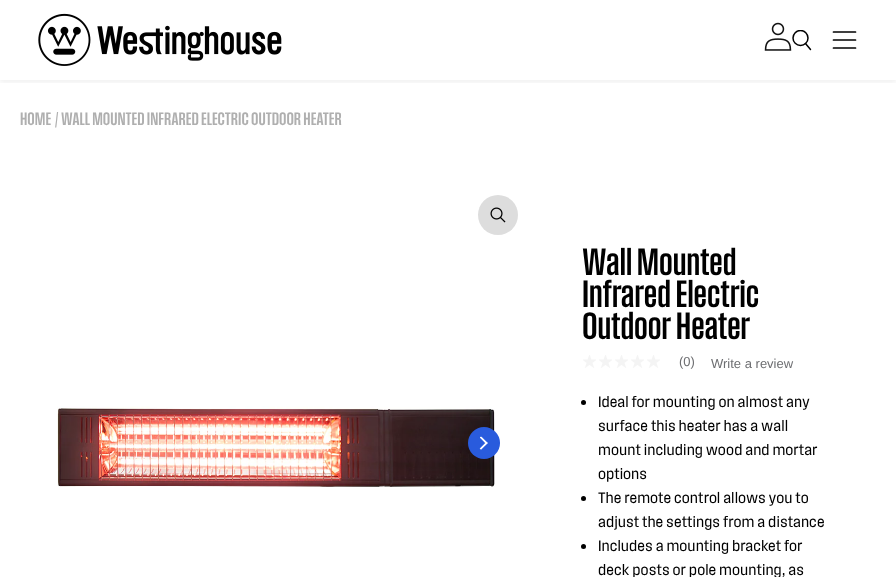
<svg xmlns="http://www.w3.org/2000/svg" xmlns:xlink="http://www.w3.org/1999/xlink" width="896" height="577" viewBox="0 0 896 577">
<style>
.cls-1{font:600 19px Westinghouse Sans;fill:#afafaf}
.cls-2{font:600 40px Westinghouse Sans;fill:#000000}
.cls-3{font:13px Liberation Sans;fill:#6d6e71}
.cls-4{font:16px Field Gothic;fill:#000000}
</style>
<defs>
<clipPath id="clip1"><rect x="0" y="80" width="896" height="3"/></clipPath>
<clipPath id="clip2"><rect x="792" y="30" width="19" height="20"/></clipPath>
<clipPath id="clip3"><path d="M480 450.5V436.5H488V450.5Z"/></clipPath>
</defs>
<rect width="100%" height="100%" fill="#ffffff"/>
<g clip-path="url(#clip1)">
<rect fill="#000000" fill-opacity="0.05" filter="blur(2px)" x="0" y="3" width="896" height="80"/>
</g>
<image xlink:href="image0.png" x="38" y="13" width="244" height="53"/>
<image xlink:href="image1.png" x="764" y="22" width="28" height="29"/>
<g clip-path="url(#clip2)">
<circle fill="none" stroke="#000000" stroke-width="1.5" cx="800.5" cy="38" r="7.5"/>
</g>
<path fill="none" stroke="#000000" stroke-width="1.5" stroke-linecap="round" stroke-linejoin="round" d="M810.5 49.5L805.5 43.5"/>
<path fill="none" stroke="#000000" stroke-width="1.7" stroke-linecap="round" stroke-linejoin="round" d="M833.5 32H855.5M833.5 40H855.5M833.5 48H855.5"/>
<circle fill="#dddddd" cx="498" cy="215" r="20"/>
<image xlink:href="image2.png" x="490" y="207" width="16" height="16"/>
<image xlink:href="image3.png" x="57" y="406" width="438" height="81"/>
<circle fill="#295bdd" cx="484" cy="443" r="16"/>
<g clip-path="url(#clip3)">
<path fill="none" stroke="#ffffff" stroke-width="1.8" stroke-linecap="square" d="M486.5 443L481 437.5"/>
</g>
<path fill="none" stroke="#ffffff" stroke-width="1.8" stroke-linecap="square" d="M486.5 443L481 448.5"/>
<image xlink:href="image4.png" x="583" y="355" width="13" height="13"/>
<image xlink:href="image4.png" x="599" y="355" width="13" height="13"/>
<image xlink:href="image4.png" x="615" y="355" width="13" height="13"/>
<image xlink:href="image4.png" x="631" y="355" width="13" height="13"/>
<image xlink:href="image4.png" x="647" y="355" width="13" height="13"/>
<circle fill="#000000" cx="583.5" cy="402.5" r="2.5"/>
<circle fill="#000000" cx="583.5" cy="498.5" r="2.5"/>
<circle fill="#000000" cx="583.5" cy="546.5" r="2.5"/>
<text class="cls-1" x="20" y="125">HOME</text>
<text class="cls-1" x="55" y="125">/</text>
<text class="cls-1" x="61" y="125">WALL MOUNTED INFRARED ELECTRIC OUTDOOR HEATER</text>
<text class="cls-2"><tspan x="582" y="275">Wall Mounted</tspan><tspan x="582" y="307">Infrared Electric</tspan><tspan x="582" y="339">Outdoor Heater</tspan></text>
<text class="cls-3" x="679" y="366">(0)</text>
<text class="cls-3" x="711" y="368">Write a review</text>
<text class="cls-4"><tspan x="598" y="407">Ideal for mounting on almost any</tspan><tspan x="598" y="431">surface this heater has a wall</tspan><tspan x="598" y="455">mount including wood and mortar</tspan><tspan x="598" y="479">options</tspan><tspan x="598" y="503">The remote control allows you to</tspan><tspan x="598" y="527">adjust the settings from a distance</tspan><tspan x="598" y="551">Includes a mounting bracket for</tspan><tspan x="598" y="575">deck posts or pole mounting, as</tspan></text>
</svg>
